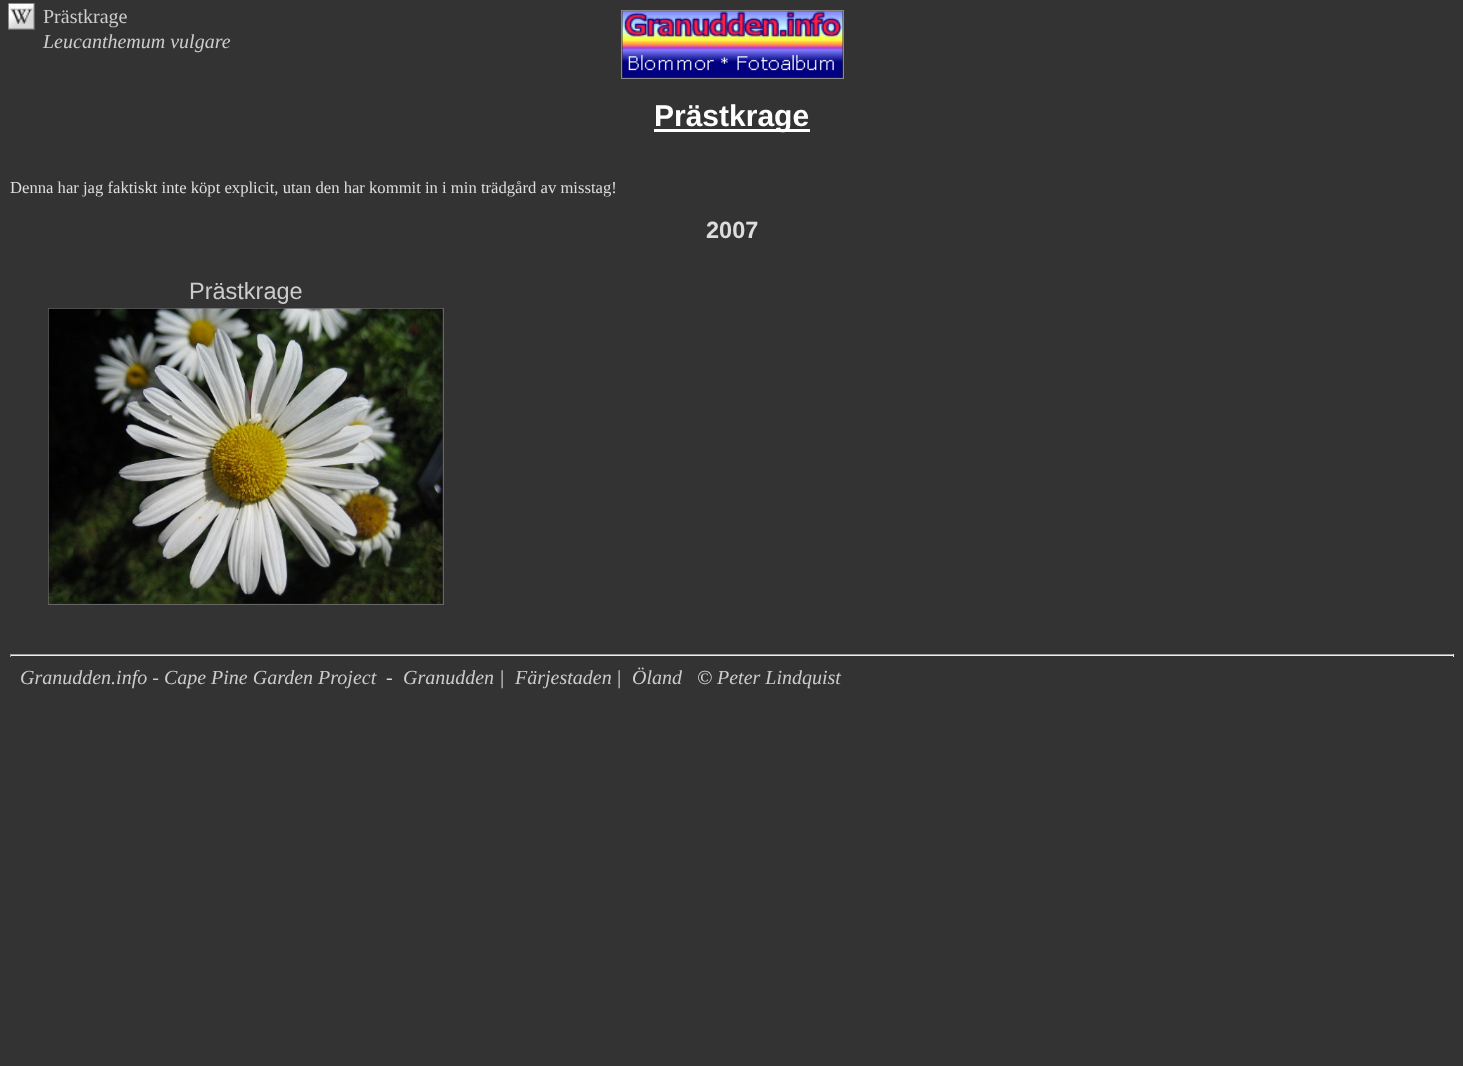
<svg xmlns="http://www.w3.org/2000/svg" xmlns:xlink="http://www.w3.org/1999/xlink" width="1463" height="1066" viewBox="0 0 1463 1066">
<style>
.cls-1{font:20px Liberation Serif;fill:#cccccc}
.cls-2{font:italic 20px Liberation Serif;fill:#cccccc}
.cls-3{font:bold 30px Liberation Sans;fill:#ffffff}
.cls-4{font:16.65px Liberation Serif;fill:#dddddd}
.cls-5{font:bold 23.5px Liberation Sans;fill:#dddddd}
.cls-6{font:23.5px Liberation Sans;fill:#cccccc}
.cls-7{font:italic 20px Liberation Serif;fill:#dddddd}
</style>
<rect width="100%" height="100%" fill="#333333"/>
<rect fill="none" stroke="#666666" x="8.5" y="3.5" width="26" height="26"/>
<image xlink:href="image0.png" x="8" y="3" width="26" height="26"/>
<rect fill="none" stroke="#888888" x="621.5" y="10.5" width="222" height="68"/>
<image xlink:href="image1.png" x="622" y="11" width="221" height="67"/>
<rect fill="#ffffff" x="654" y="129" width="156" height="3"/>
<rect fill="none" stroke="#666666" x="48.5" y="308.5" width="395" height="296"/>
<image xlink:href="image2.png" x="48" y="308" width="395" height="296"/>
<rect fill="#9f9f9f" x="10" y="654" width="1444" height="1"/>
<rect fill="#eeeeee" x="1453" y="654" width="1" height="3"/>
<rect fill="#eeeeee" x="10" y="655" width="1444" height="1"/>
<rect fill="#9f9f9f" x="10" y="654" width="1" height="3"/>
<text class="cls-1" x="43" y="23">Prästkrage</text>
<text class="cls-2" x="43" y="48">Leucanthemum vulgare</text>
<text class="cls-3" x="654" y="126">Prästkrage</text>
<text class="cls-4" x="10" y="193">Denna har jag faktiskt inte köpt explicit, utan den har kommit in i min trädgård av misstag!</text>
<text class="cls-5" x="706" y="238">2007</text>
<text class="cls-6" x="189" y="299">Prästkrage</text>
<text class="cls-2" x="20" y="684">Granudden.info - Cape Pine Garden Project</text>
<text class="cls-7" x="386" y="684">-</text>
<text class="cls-2" x="403" y="684">Granudden</text>
<text class="cls-7" x="499" y="684">|</text>
<text class="cls-2" x="515" y="684">Färjestaden</text>
<text class="cls-7" x="616" y="684">|</text>
<text class="cls-2" x="632" y="684">Öland</text>
<text class="cls-7" x="697" y="684">©</text>
<text class="cls-2" x="717" y="684">Peter Lindquist</text>
</svg>
